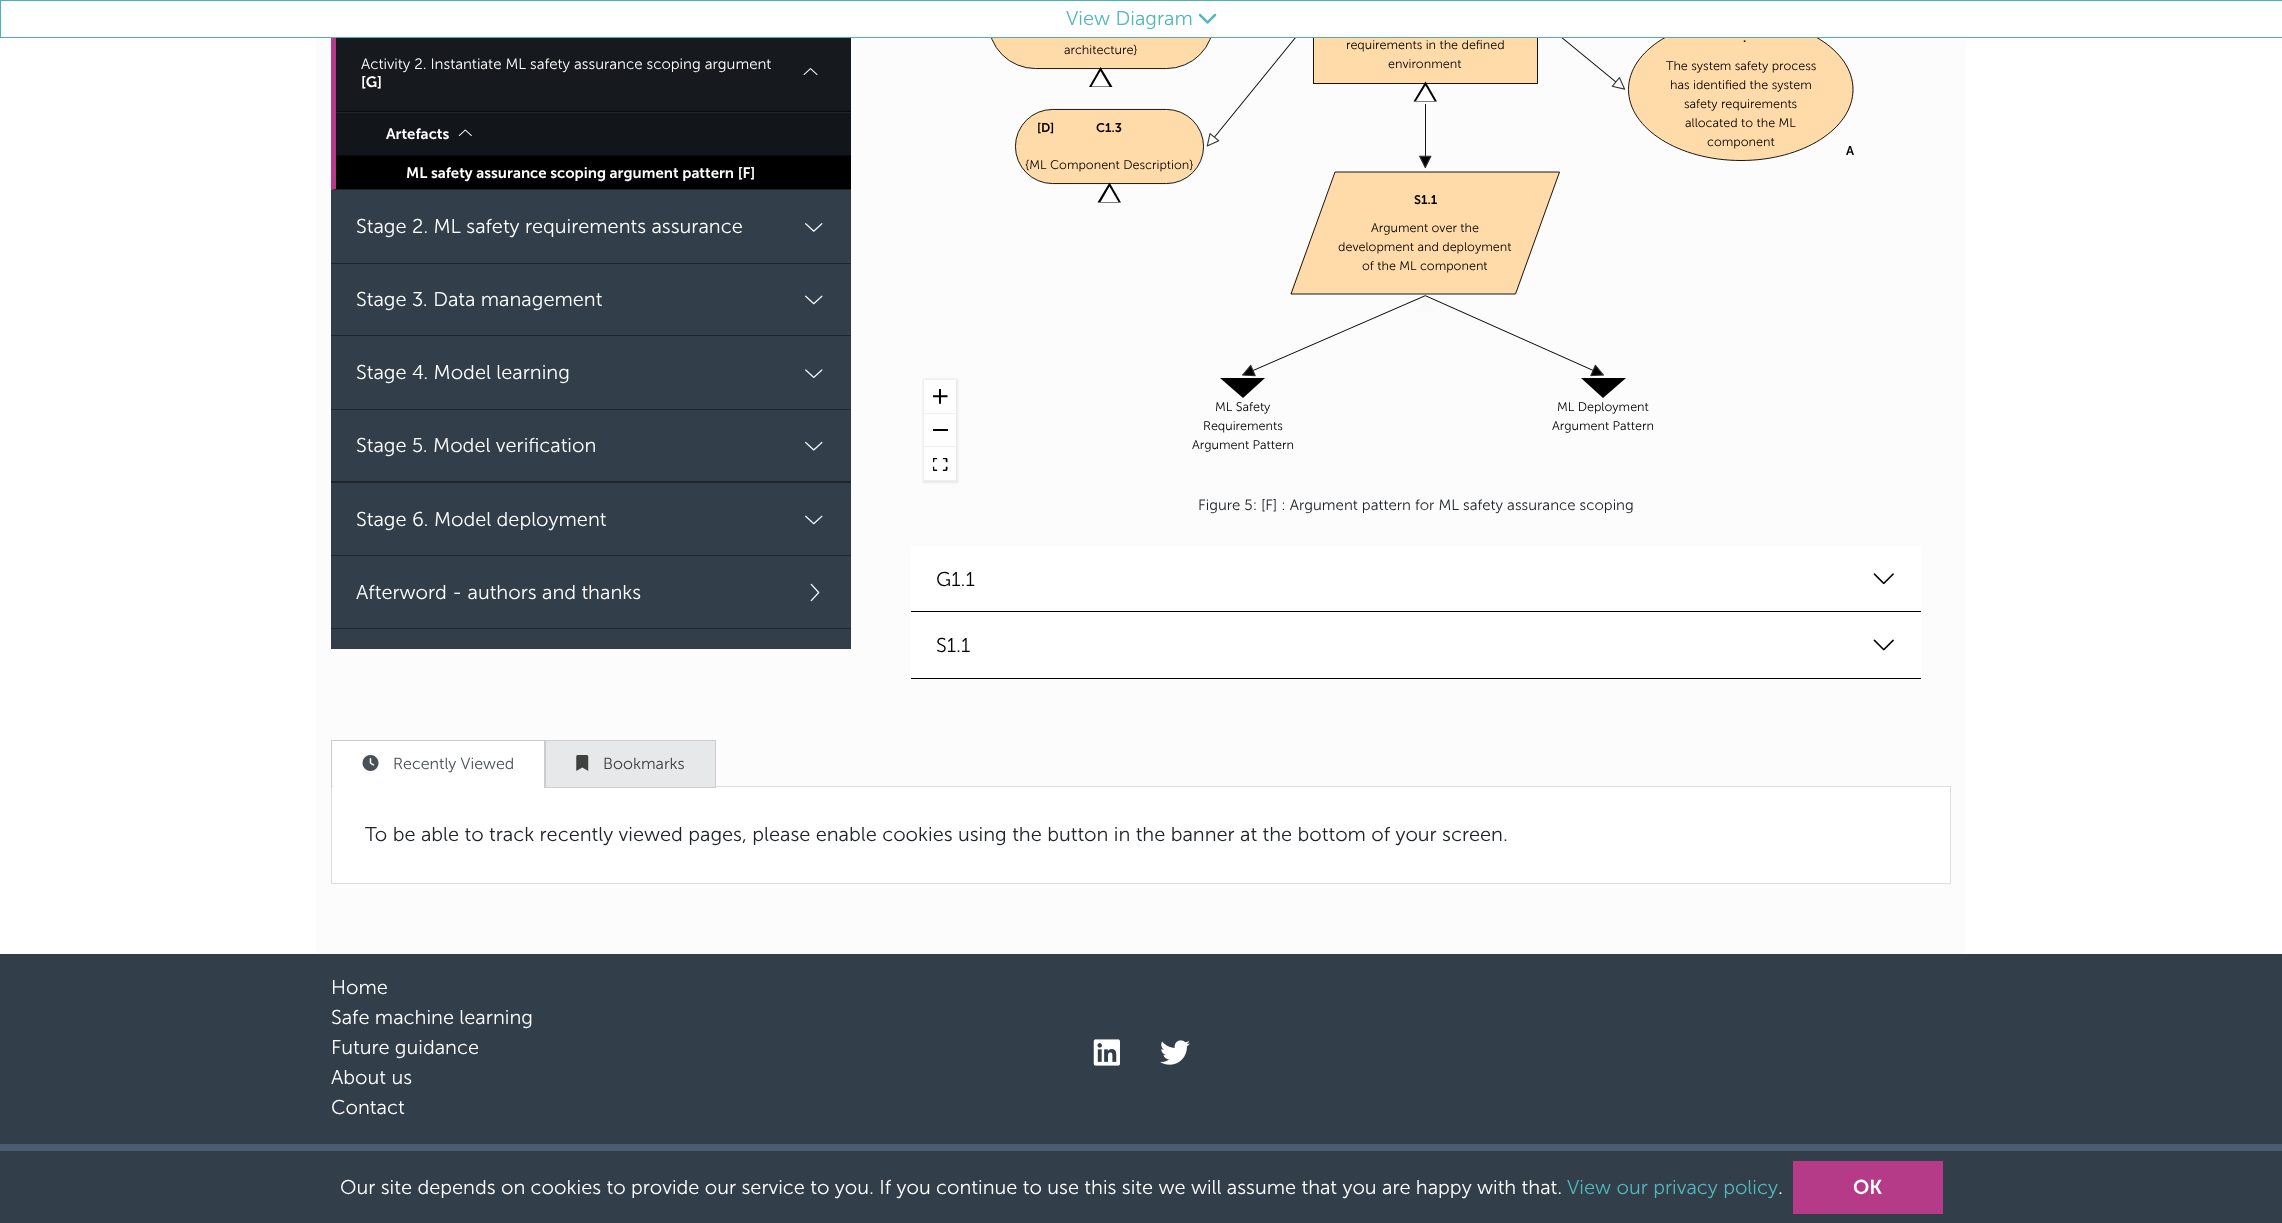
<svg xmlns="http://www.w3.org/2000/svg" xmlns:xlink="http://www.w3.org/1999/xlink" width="2282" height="1223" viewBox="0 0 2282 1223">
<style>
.cls-1{font:300 20px 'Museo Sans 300';fill:#52b6bd}
.cls-2{font:300 15px 'Museo Sans 300';fill:#ffffff}
.cls-3{font:600 15px 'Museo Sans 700';fill:#ffffff}
.cls-4{font:300 20px 'Museo Sans 300';fill:#ffffff}
.cls-5{font:300 12.6px 'Museo Sans 300';fill:#000000}
.cls-6{font:600 12.6px 'Museo Sans 700';fill:#000000}
.cls-7{font:300 15px 'Museo Sans 300';fill:#212529}
.cls-8{font:300 20px 'Museo Sans 300';fill:#000000}
.cls-9{font:300 16px 'Museo Sans 300';fill:#495057}
.cls-10{font:300 16px 'Museo Sans 300';fill:#404040}
.cls-11{font:300 20px 'Museo Sans 300';fill:#212529}
.cls-12{font:600 20px 'Museo Sans 700';fill:#ffffff}
</style>
<rect width="100%" height="100%" fill="#ffffff"/>
<rect fill="#fcfcfc" x="316" y="38" width="1650" height="916"/>
<rect fill="#1e252c" x="331" y="112" width="520" height="78"/>
<path fill="#b53a87" d="M331 190V-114H336V189Z"/>
<image xlink:href="image10.png" x="1206" y="38" width="420" height="339"/>
<rect fill="#ffdba9" stroke="#000000" stroke-width="0.9" x="988.45" y="-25.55" width="225.1" height="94.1" rx="47.05"/>
<rect fill="#ffdba9" x="1313" y="38" width="225" height="46"/>
<rect fill="none" stroke="#000000" stroke-width="0.9" x="1313.45" y="-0.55" width="224.1" height="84.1"/>
<ellipse fill="#ffdba9" cx="1741" cy="89.5" rx="112.5" ry="71"/>
<path fill="none" stroke="#000000" stroke-width="0.9" d="M1741 19C1803 19 1853 50.5 1853 89.5C1853 128.5 1803 160.5 1741 160.5C1679 160.5 1628.5 128.5 1628.5 89.5C1628.5 50.5 1679 19 1741 19Z"/>
<rect fill="#ffffff" x="331" y="1" width="1486" height="36"/>
<rect fill="none" stroke="#4fafb5" x="0.5" y="0.5" width="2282" height="37"/>
<image xlink:href="image0.png" x="1198" y="13" width="19" height="11"/>
<rect fill="#323e4a" x="331" y="629" width="520" height="20"/>
<rect fill="#161a1f" x="336" y="38" width="515" height="73"/>
<image xlink:href="image1.png" x="803" y="68" width="15" height="7"/>
<rect fill="#090b0e" x="336" y="111" width="515" height="1"/>
<rect fill="#12151a" x="336" y="113" width="515" height="42"/>
<image xlink:href="image2.png" x="458" y="129" width="14" height="7"/>
<rect fill="#06080a" x="336" y="155" width="515" height="1"/>
<rect fill="#000000" x="336" y="156" width="515" height="33"/>
<rect fill="#1e252c" x="331" y="263" width="520" height="1"/>
<rect fill="#323e4a" x="331" y="190" width="520" height="73"/>
<image xlink:href="image3.png" x="805" y="223" width="18" height="9"/>
<rect fill="#1e252c" x="331" y="335" width="520" height="1"/>
<rect fill="#323e4a" x="331" y="264" width="520" height="71"/>
<image xlink:href="image4.png" x="805" y="295" width="18" height="10"/>
<rect fill="#1e252c" x="331" y="409" width="520" height="1"/>
<rect fill="#323e4a" x="331" y="336" width="520" height="73"/>
<image xlink:href="image5.png" x="805" y="369" width="18" height="9"/>
<rect fill="#1e252c" x="331" y="481" width="520" height="2"/>
<rect fill="#323e4a" x="331" y="410" width="520" height="71"/>
<image xlink:href="image6.png" x="805" y="441" width="18" height="10"/>
<rect fill="#1e252c" x="331" y="555" width="520" height="1"/>
<rect fill="#323e4a" x="331" y="483" width="520" height="72"/>
<image xlink:href="image4.png" x="805" y="515" width="18" height="10"/>
<rect fill="#1e252c" x="331" y="628" width="520" height="1"/>
<rect fill="#323e4a" x="331" y="556" width="520" height="72"/>
<image xlink:href="image7.png" x="810" y="583" width="10" height="19"/>
<rect fill="#000000" fill-opacity="0.08" filter="blur(1px)" x="923" y="379" width="35" height="104"/>
<rect fill="#fefefe" x="924" y="380" width="32" height="33"/>
<rect fill="#eeeeee" x="924" y="413" width="32" height="1"/>
<image xlink:href="image8.png" x="933" y="389" width="15" height="15"/>
<rect fill="#fefefe" x="924" y="414" width="32" height="66"/>
<rect fill="#eeeeee" x="924" y="446" width="32" height="1"/>
<rect fill="#000000" x="933" y="429" width="15" height="2"/>
<rect fill="#eeeeee" x="924" y="480" width="32" height="1"/>
<image xlink:href="image9.png" x="933" y="458" width="15" height="13"/>
<path fill="#000000" d="M1112.5 87H1089L1100.5 67Z"/>
<path fill="#ffffff" d="M1109.5 86.5H1091.5L1100.5 71Z"/>
<path fill="#000000" d="M1437 101.5H1413.5L1425.5 81.5Z"/>
<path fill="#ffffff" d="M1434.5 101H1416L1425.5 85.5Z"/>
<rect fill="#ffdba9" stroke="#000000" stroke-width="0.9" x="1015.45" y="109.45" width="188.1" height="74.1" rx="37.05"/>
<path fill="#000000" d="M1121 202.5H1097.5L1109.5 182.5Z"/>
<path fill="#ffffff" d="M1118.5 202H1100.5L1109.5 186.5Z"/>
<path fill="#ffdba9" d="M1335 172H1560L1516 294H1290Z"/>
<path fill="none" stroke="#000000" stroke-width="0.9" d="M1335 172H1559.5L1515.5 294H1291Z"/>
<path fill="#fafafa" d="M1434.5 312H1416L1425 296.5Z"/>
<path fill="#000000" d="M1220 378H1265L1243 398Z"/>
<path fill="#000000" d="M1581 378H1626L1603 398Z"/>
<rect fill="#ffffff" x="911" y="546" width="1010" height="132"/>
<rect fill="#000000" x="911" y="611" width="1010" height="1"/>
<image xlink:href="image11.png" x="1873" y="573" width="21" height="12"/>
<rect fill="#000000" x="911" y="678" width="1010" height="1"/>
<image xlink:href="image12.png" x="1873" y="639" width="21" height="12"/>
<rect fill="#ffffff" stroke="#dddddd" x="331.5" y="786.5" width="1619" height="97"/>
<rect fill="#ffffff" x="333" y="741" width="211" height="46"/>
<rect fill="#cdcdcd" x="331" y="740" width="214" height="1"/>
<rect fill="#cdcdcd" x="544" y="740" width="1" height="48"/>
<rect fill="#cdcdcd" x="331" y="740" width="1" height="48"/>
<image xlink:href="image13.png" x="362" y="755" width="17" height="16"/>
<rect fill="#e7e8e9" stroke="#cdcdcd" x="545.5" y="740.5" width="170" height="47"/>
<image xlink:href="image14.png" x="576" y="755" width="13" height="16"/>
<rect fill="#323e4a" x="0" y="954" width="2282" height="190"/>
<image xlink:href="image15.png" x="1093" y="1039" width="27" height="27"/>
<image xlink:href="image16.png" x="1160" y="1040" width="30" height="25"/>
<rect fill="#4b5d70" x="0" y="1144" width="2282" height="7"/>
<rect fill="#323e4a" x="0" y="1151" width="2282" height="72"/>
<rect fill="#b53a87" x="1793" y="1161" width="150" height="53"/>
<text class="cls-1" x="1066" y="25">View Diagram</text>
<text class="cls-2" x="361" y="69">Activity 2. Instantiate ML safety assurance scoping argument</text>
<text class="cls-3" x="361" y="87">[G]</text>
<text class="cls-3" x="386" y="139">Artefacts</text>
<text class="cls-3" x="406" y="178">ML safety assurance scoping argument pattern [F]</text>
<text class="cls-4" x="356" y="233">Stage 2. ML safety requirements assurance</text>
<text class="cls-4" x="356" y="306">Stage 3. Data management</text>
<text class="cls-4" x="356" y="379">Stage 4. Model learning</text>
<text class="cls-4" x="356" y="452">Stage 5. Model verification</text>
<text class="cls-4" x="356" y="526">Stage 6. Model deployment</text>
<text class="cls-4" x="356" y="599">Afterword - authors and thanks</text>
<text class="cls-5" x="1064" y="54">architecture}</text>
<text class="cls-5" x="1346" y="49">requirements in the defined</text>
<text class="cls-5" x="1388" y="68">environment</text>
<text class="cls-6" x="1743" y="42">.</text>
<text class="cls-5" x="1666" y="70">The system safety process</text>
<text class="cls-5" x="1670" y="89">has identified the system</text>
<text class="cls-5" x="1684" y="108">safety requirements</text>
<text class="cls-5" x="1685" y="127">allocated to the ML</text>
<text class="cls-5" x="1707" y="146">component</text>
<text class="cls-6" x="1846" y="155">A</text>
<text class="cls-6" x="1037" y="132">[D]</text>
<text class="cls-6" x="1096" y="132">C1.3</text>
<text class="cls-5" x="1025" y="169">{ML Component Description}</text>
<text class="cls-6" x="1414" y="204">S1.1</text>
<text class="cls-5" x="1371" y="232">Argument over the</text>
<text class="cls-5" x="1338" y="251">development and deployment</text>
<text class="cls-5" x="1362" y="270">of the ML component</text>
<text class="cls-5" x="1215" y="411">ML Safety</text>
<text class="cls-5" x="1203" y="430">Requirements</text>
<text class="cls-5" x="1192" y="449">Argument Pattern</text>
<text class="cls-5" x="1557" y="411">ML Deployment</text>
<text class="cls-5" x="1552" y="430">Argument Pattern</text>
<text class="cls-7" x="1198" y="510">Figure 5: [F] : Argument pattern for ML safety assurance scoping</text>
<text class="cls-8" x="936" y="586">G1.1</text>
<text class="cls-8" x="936" y="652">S1.1</text>
<text class="cls-9" x="393" y="769">Recently Viewed</text>
<text class="cls-10" x="603" y="769">Bookmarks</text>
<text class="cls-11" x="365" y="841">To be able to track recently viewed pages, please enable cookies using the button in the banner at the bottom of your screen.</text>
<text class="cls-4"><tspan x="331" y="994">Home</tspan><tspan x="331" y="1024">Safe machine learning</tspan><tspan x="331" y="1054">Future guidance</tspan><tspan x="331" y="1084">About us</tspan><tspan x="331" y="1114">Contact</tspan></text>
<text class="cls-4" x="340" y="1194">Our site depends on cookies to provide our service to you. If you continue to use this site we will assume that you are happy with that.</text>
<text class="cls-1" x="1567" y="1194">View our privacy policy</text>
<text class="cls-4" x="1778" y="1194">.</text>
<text class="cls-12" x="1853" y="1194">OK</text>
</svg>
